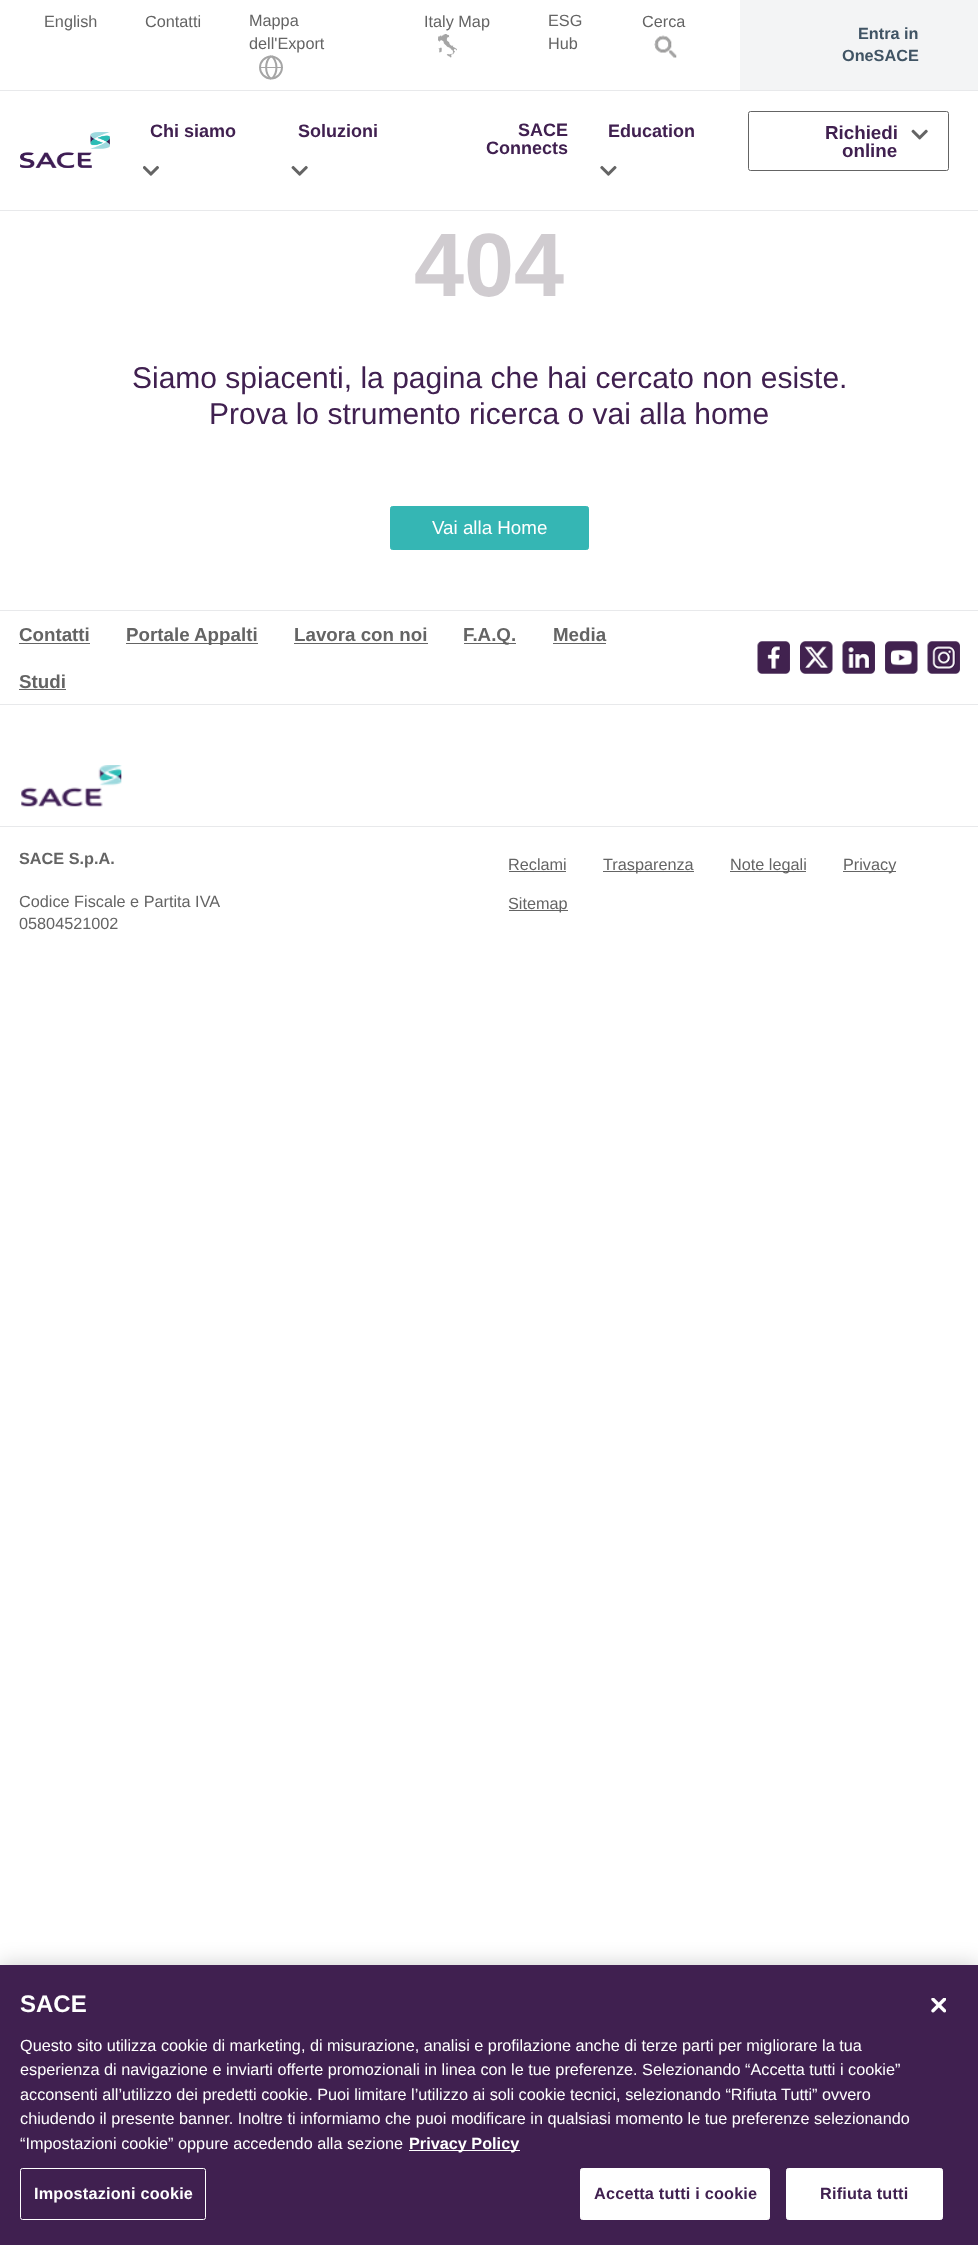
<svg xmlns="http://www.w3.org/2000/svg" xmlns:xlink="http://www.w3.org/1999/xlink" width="978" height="2245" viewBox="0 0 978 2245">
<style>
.cls-1{font:16.25px Liberation Sans;fill:#646464}
.cls-2{font:bold 16.25px Liberation Sans;fill:#405464}
.cls-3{font:bold 18px Liberation Sans;fill:#402050}
.cls-4{font:bold 18.75px Liberation Sans;fill:#402050}
.cls-5{font:bold 90px Liberation Sans;fill:#d0ccd0}
.cls-6{font:30px Liberation Sans;fill:#402050}
.cls-7{font:18.75px Liberation Sans;fill:#ffffff}
.cls-8{font:bold 18.75px Liberation Sans;fill:#646464}
.cls-9{font:bold 16.25px Liberation Sans;fill:#646464}
.cls-10{font:bold 24px Liberation Sans;fill:#ffffff}
.cls-11{font:16.25px Liberation Sans;fill:#ffffff}
.cls-12{font:bold 16.25px Liberation Sans;fill:#ffffff}
.cls-13{font:bold 16.25px Liberation Sans;letter-spacing:0.2px;fill:#ffffff}
.cls-14{font:bold 16.25px Liberation Sans;letter-spacing:0.2px;fill:#402050}
</style>
<rect width="100%" height="100%" fill="#ffffff"/>
<rect fill="#e8e9eb" x="0" y="90" width="978" height="1"/>
<circle fill="none" stroke="#a5a5a5" stroke-width="1.9" cx="271" cy="67.5" r="11"/>
<path fill="none" stroke="#a5a5a5" stroke-width="2" d="M271 56C264.5 61.5 264.5 73.5 271 79M272 78.5C278 73 278 61.5 271.5 56"/>
<rect fill="#a5a5a5" x="260" y="67" width="23" height="1"/>
<image xlink:href="image0.png" x="438" y="34" width="19" height="24"/>
<image xlink:href="image1.png" x="654" y="35" width="23" height="23"/>
<rect fill="#f3f4f5" x="740" y="0" width="238" height="90"/>
<rect fill="#e8e9eb" x="0" y="210" width="978" height="1"/>
<image xlink:href="image2.png" x="20" y="132" width="90" height="36"/>
<image xlink:href="image3.png" x="143" y="165" width="16" height="11"/>
<image xlink:href="image4.png" x="291" y="165" width="17" height="11"/>
<image xlink:href="image5.png" x="600" y="165" width="17" height="11"/>
<rect fill="none" stroke="#646464" x="748.5" y="111.5" width="200" height="59" rx="2"/>
<image xlink:href="image6.png" x="911" y="129" width="17" height="11"/>
<rect fill="#35b6b4" stroke="#35b6b4" x="390.5" y="506.5" width="198" height="43" rx="2"/>
<rect fill="#e8e9eb" x="0" y="610" width="978" height="1"/>
<rect fill="#e8e9eb" x="0" y="704" width="978" height="1"/>
<rect fill="#646464" x="19" y="643" width="71" height="1"/>
<rect fill="#646464" x="126" y="643" width="132" height="1"/>
<rect fill="#646464" x="294" y="643" width="134" height="1"/>
<rect fill="#646464" x="464" y="643" width="52" height="1"/>
<rect fill="#646464" x="553" y="643" width="53" height="1"/>
<rect fill="#646464" x="19" y="689" width="47" height="1"/>
<image xlink:href="image7.png" x="757" y="641" width="33" height="33"/>
<image xlink:href="image8.png" x="800" y="641" width="33" height="33"/>
<image xlink:href="image9.png" x="842" y="641" width="33" height="33"/>
<image xlink:href="image10.png" x="885" y="641" width="33" height="33"/>
<image xlink:href="image11.png" x="927" y="641" width="33" height="33"/>
<rect fill="#e8e9eb" x="0" y="826" width="978" height="1"/>
<image xlink:href="image12.png" x="21" y="765" width="101" height="42"/>
<rect fill="#646464" x="509" y="871" width="57" height="1"/>
<rect fill="#646464" x="603" y="871" width="91" height="1"/>
<rect fill="#646464" x="730" y="871" width="76" height="1"/>
<rect fill="#646464" x="843" y="871" width="53" height="1"/>
<rect fill="#646464" x="509" y="910" width="59" height="1"/>
<rect fill="#000000" fill-opacity="0.2" filter="blur(11px)" x="0" y="1965" width="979" height="280"/>
<rect fill="#402050" x="0" y="1965" width="978" height="280"/>
<rect fill="#ffffff" x="409" y="2150" width="111" height="1"/>
<rect fill="none" stroke="#ffffff" x="20.5" y="2168.5" width="185" height="51" rx="2"/>
<rect fill="#ffffff" stroke="#ffffff" x="580.5" y="2168.5" width="189" height="51" rx="2"/>
<rect fill="#ffffff" stroke="#ffffff" x="786.5" y="2168.5" width="156" height="51" rx="2"/>
<image xlink:href="image13.png" x="931" y="1998" width="15" height="15"/>
<text class="cls-1" x="44" y="27">English</text>
<text class="cls-1" x="145" y="27">Contatti</text>
<text class="cls-1"><tspan x="249" y="26">Mappa</tspan><tspan x="249" y="49">dell'Export</tspan></text>
<text class="cls-1" x="424" y="27">Italy Map</text>
<text class="cls-1"><tspan x="548" y="26">ESG</tspan><tspan x="548" y="49">Hub</tspan></text>
<text class="cls-1" x="642" y="27">Cerca</text>
<text class="cls-2" x="858" y="39">Entra in</text>
<text class="cls-2" x="842" y="61">OneSACE</text>
<text class="cls-3" x="150" y="137">Chi siamo</text>
<text class="cls-3" x="298" y="137">Soluzioni</text>
<text class="cls-3" x="518" y="136">SACE</text>
<text class="cls-3" x="486" y="154">Connects</text>
<text class="cls-3" x="608" y="137">Education</text>
<text class="cls-4" x="825" y="139">Richiedi</text>
<text class="cls-4" x="842" y="157">online</text>
<text class="cls-5" x="414" y="296">404</text>
<text class="cls-6" x="132" y="388">Siamo spiacenti, la pagina che hai cercato non esiste.</text>
<text class="cls-6" x="209" y="424">Prova lo strumento ricerca o vai alla home</text>
<text class="cls-7" x="432" y="534">Vai alla Home</text>
<text class="cls-8" x="19" y="641">Contatti</text>
<text class="cls-8" x="126" y="641">Portale Appalti</text>
<text class="cls-8" x="294" y="641">Lavora con noi</text>
<text class="cls-8" x="463" y="641">F.A.Q.</text>
<text class="cls-8" x="553" y="641">Media</text>
<text class="cls-8" x="19" y="688">Studi</text>
<text class="cls-9" x="19" y="864">SACE S.p.A.</text>
<text class="cls-1"><tspan x="19" y="907">Codice Fiscale e Partita IVA</tspan><tspan x="19" y="929">05804521002</tspan></text>
<text class="cls-1" x="508" y="870">Reclami</text>
<text class="cls-1" x="603" y="870">Trasparenza</text>
<text class="cls-1" x="730" y="870">Note legali</text>
<text class="cls-1" x="843" y="870">Privacy</text>
<text class="cls-1" x="508" y="909">Sitemap</text>
<text class="cls-10" x="20" y="2012">SACE</text>
<text class="cls-11"><tspan x="20" y="2051">Questo sito utilizza cookie di marketing, di misurazione, analisi e profilazione anche di terze parti per migliorare la tua</tspan><tspan x="20" y="2075">esperienza di navigazione e inviarti offerte promozionali in linea con le tue preferenze. Selezionando “Accetta tutti i cookie”</tspan><tspan x="20" y="2100">acconsenti all’utilizzo dei predetti cookie. Puoi limitare l’utilizzo ai soli cookie tecnici, selezionando “Rifiuta Tutti” ovvero</tspan><tspan x="20" y="2124">chiudendo il presente banner. Inoltre ti informiamo che puoi modificare in qualsiasi momento le tue preferenze selezionando</tspan><tspan x="20" y="2149">“Impostazioni cookie” oppure accedendo alla sezione</tspan></text>
<text class="cls-12" x="409" y="2149">Privacy Policy</text>
<text class="cls-13" x="34" y="2199">Impostazioni cookie</text>
<text class="cls-14" x="594" y="2199">Accetta tutti i cookie</text>
<text class="cls-14" x="820" y="2199">Rifiuta tutti</text>
</svg>
